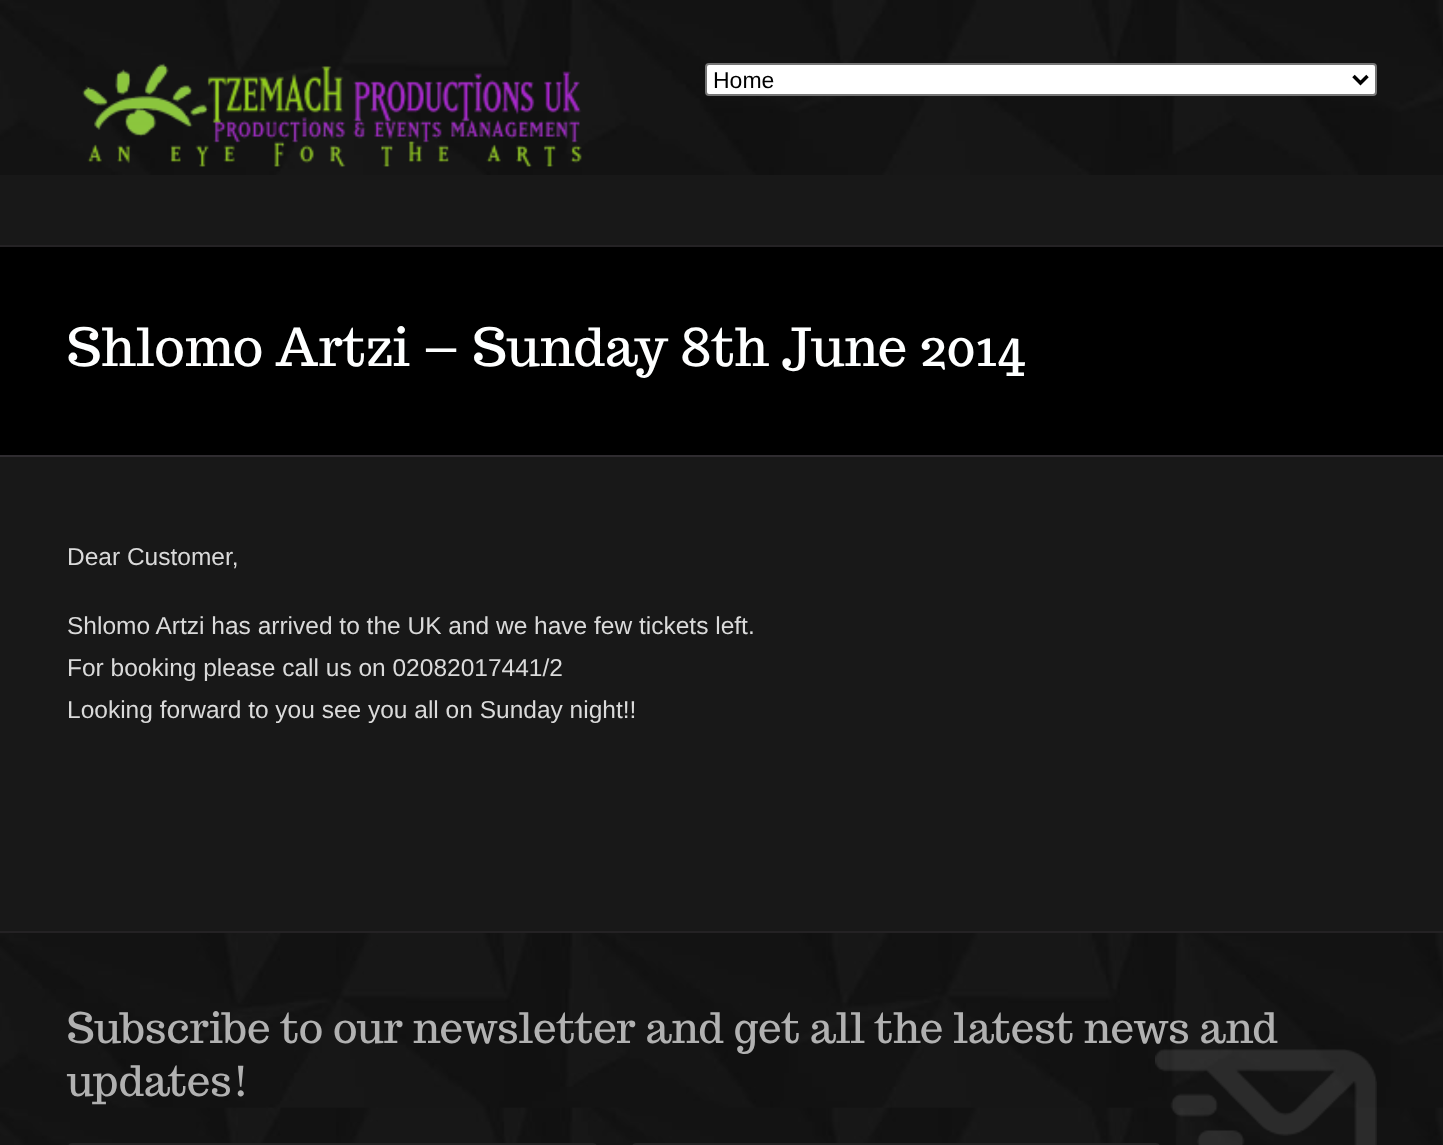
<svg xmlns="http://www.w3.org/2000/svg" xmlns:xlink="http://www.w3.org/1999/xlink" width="1443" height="1145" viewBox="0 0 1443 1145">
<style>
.cls-1{font:23px Liberation Sans;fill:#000000}
.cls-2{font:52.5px Trocchi;fill:#feffff}
.cls-3{font:24.5px Liberation Sans;fill:#dadada}
.cls-4{font:42px Trocchi;fill:#b1b1b1}
</style>
<rect width="100%" height="100%" fill="#181818"/>
<image xlink:href="image0.png" x="0" y="0" width="1443" height="175"/>
<rect fill="#242224" x="0" y="245" width="1443" height="2"/>
<image xlink:href="image1.png" x="82" y="63" width="500" height="104"/>
<rect fill="#ffffff" stroke="#767676" stroke-width="2" x="706" y="64" width="670" height="31" rx="3"/>
<path fill="none" stroke="#000000" stroke-width="3.5" d="M1353.5 76L1360.5 83L1367.5 76"/>
<rect fill="#000000" x="0" y="247" width="1443" height="208"/>
<rect fill="#2f2c30" x="0" y="455" width="1443" height="2"/>
<image xlink:href="image2.png" x="0" y="933" width="1443" height="212"/>
<rect fill="#242224" x="0" y="931" width="1443" height="2"/>
<image xlink:href="image3.png" x="1155" y="1049" width="222" height="96"/>
<rect fill="none" stroke="#232323" stroke-width="2" x="69" y="1144" width="527" height="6" rx="3"/>
<rect fill="none" stroke="#232323" stroke-width="2" x="633" y="1144" width="526" height="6" rx="3"/>
<text class="cls-1" x="713" y="88">Home</text>
<text class="cls-2" x="67" y="366">Shlomo Artzi – Sunday 8th June 2014</text>
<text class="cls-3" x="67" y="565">Dear Customer,</text>
<text class="cls-3"><tspan x="67" y="634">Shlomo Artzi has arrived to the UK and we have few tickets left.</tspan><tspan x="67" y="676">For booking please call us on 02082017441/2</tspan><tspan x="67" y="718">Looking forward to you see you all on Sunday night!!</tspan></text>
<text class="cls-4"><tspan x="67" y="1043">Subscribe to our newsletter and get all the latest news and</tspan><tspan x="67" y="1096">updates!</tspan></text>
</svg>
